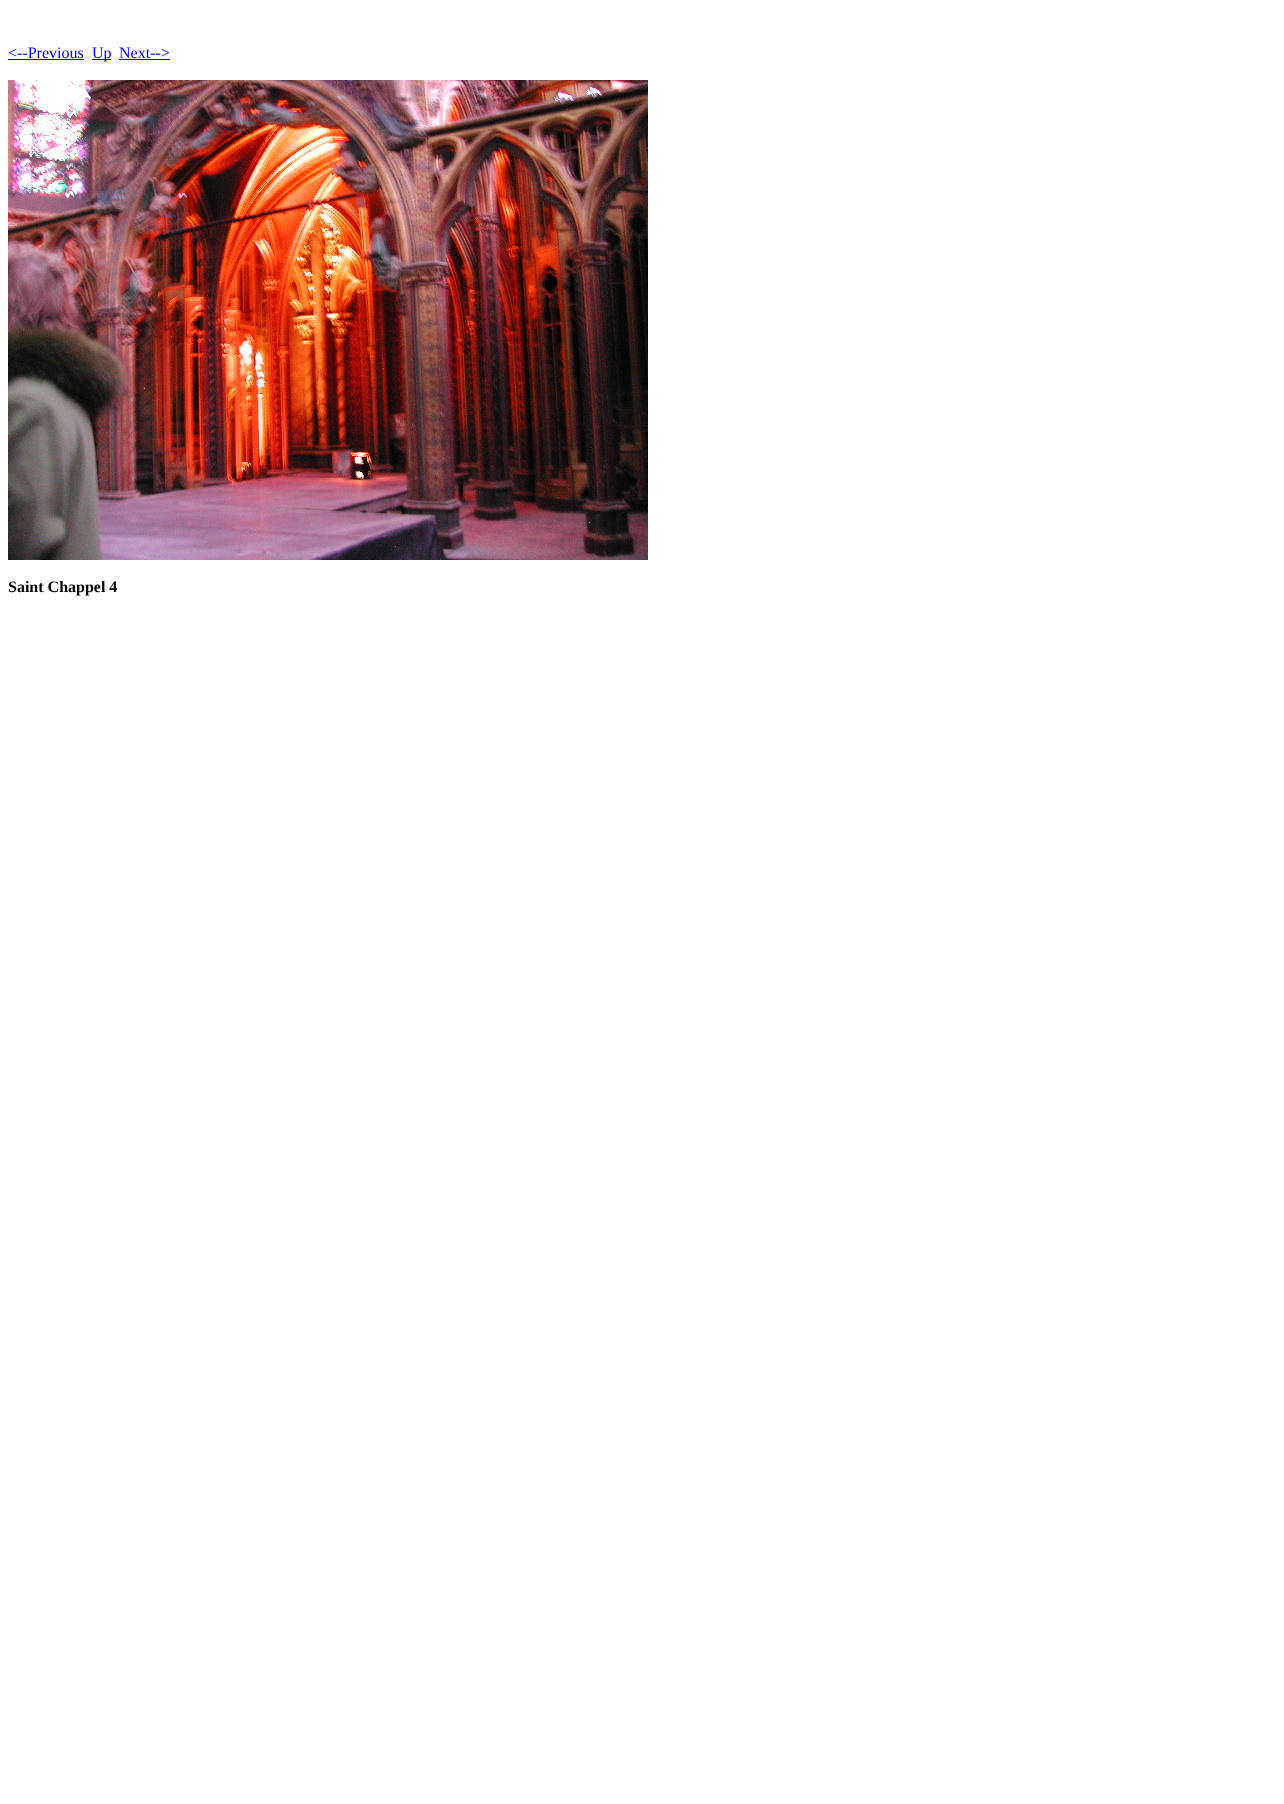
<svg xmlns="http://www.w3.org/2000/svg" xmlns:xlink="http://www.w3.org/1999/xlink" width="1284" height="1804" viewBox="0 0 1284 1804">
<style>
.cls-1{font:16px Liberation Serif;fill:#0000ee}
.cls-2{font:bold 16px Liberation Serif;fill:#000000}
</style>
<rect width="100%" height="100%" fill="#ffffff"/>
<rect fill="#0000ee" x="8" y="59" width="76" height="1"/>
<rect fill="#0000ee" x="92" y="59" width="19" height="1"/>
<rect fill="#0000ee" x="119" y="59" width="51" height="1"/>
<image xlink:href="image0.png" x="8" y="80" width="640" height="480"/>
<text class="cls-1" x="8" y="58">&lt;--Previous</text>
<text class="cls-1" x="92" y="58">Up</text>
<text class="cls-1" x="119" y="58">Next--&gt;</text>
<text class="cls-2" x="8" y="592">Saint Chappel 4</text>
</svg>
